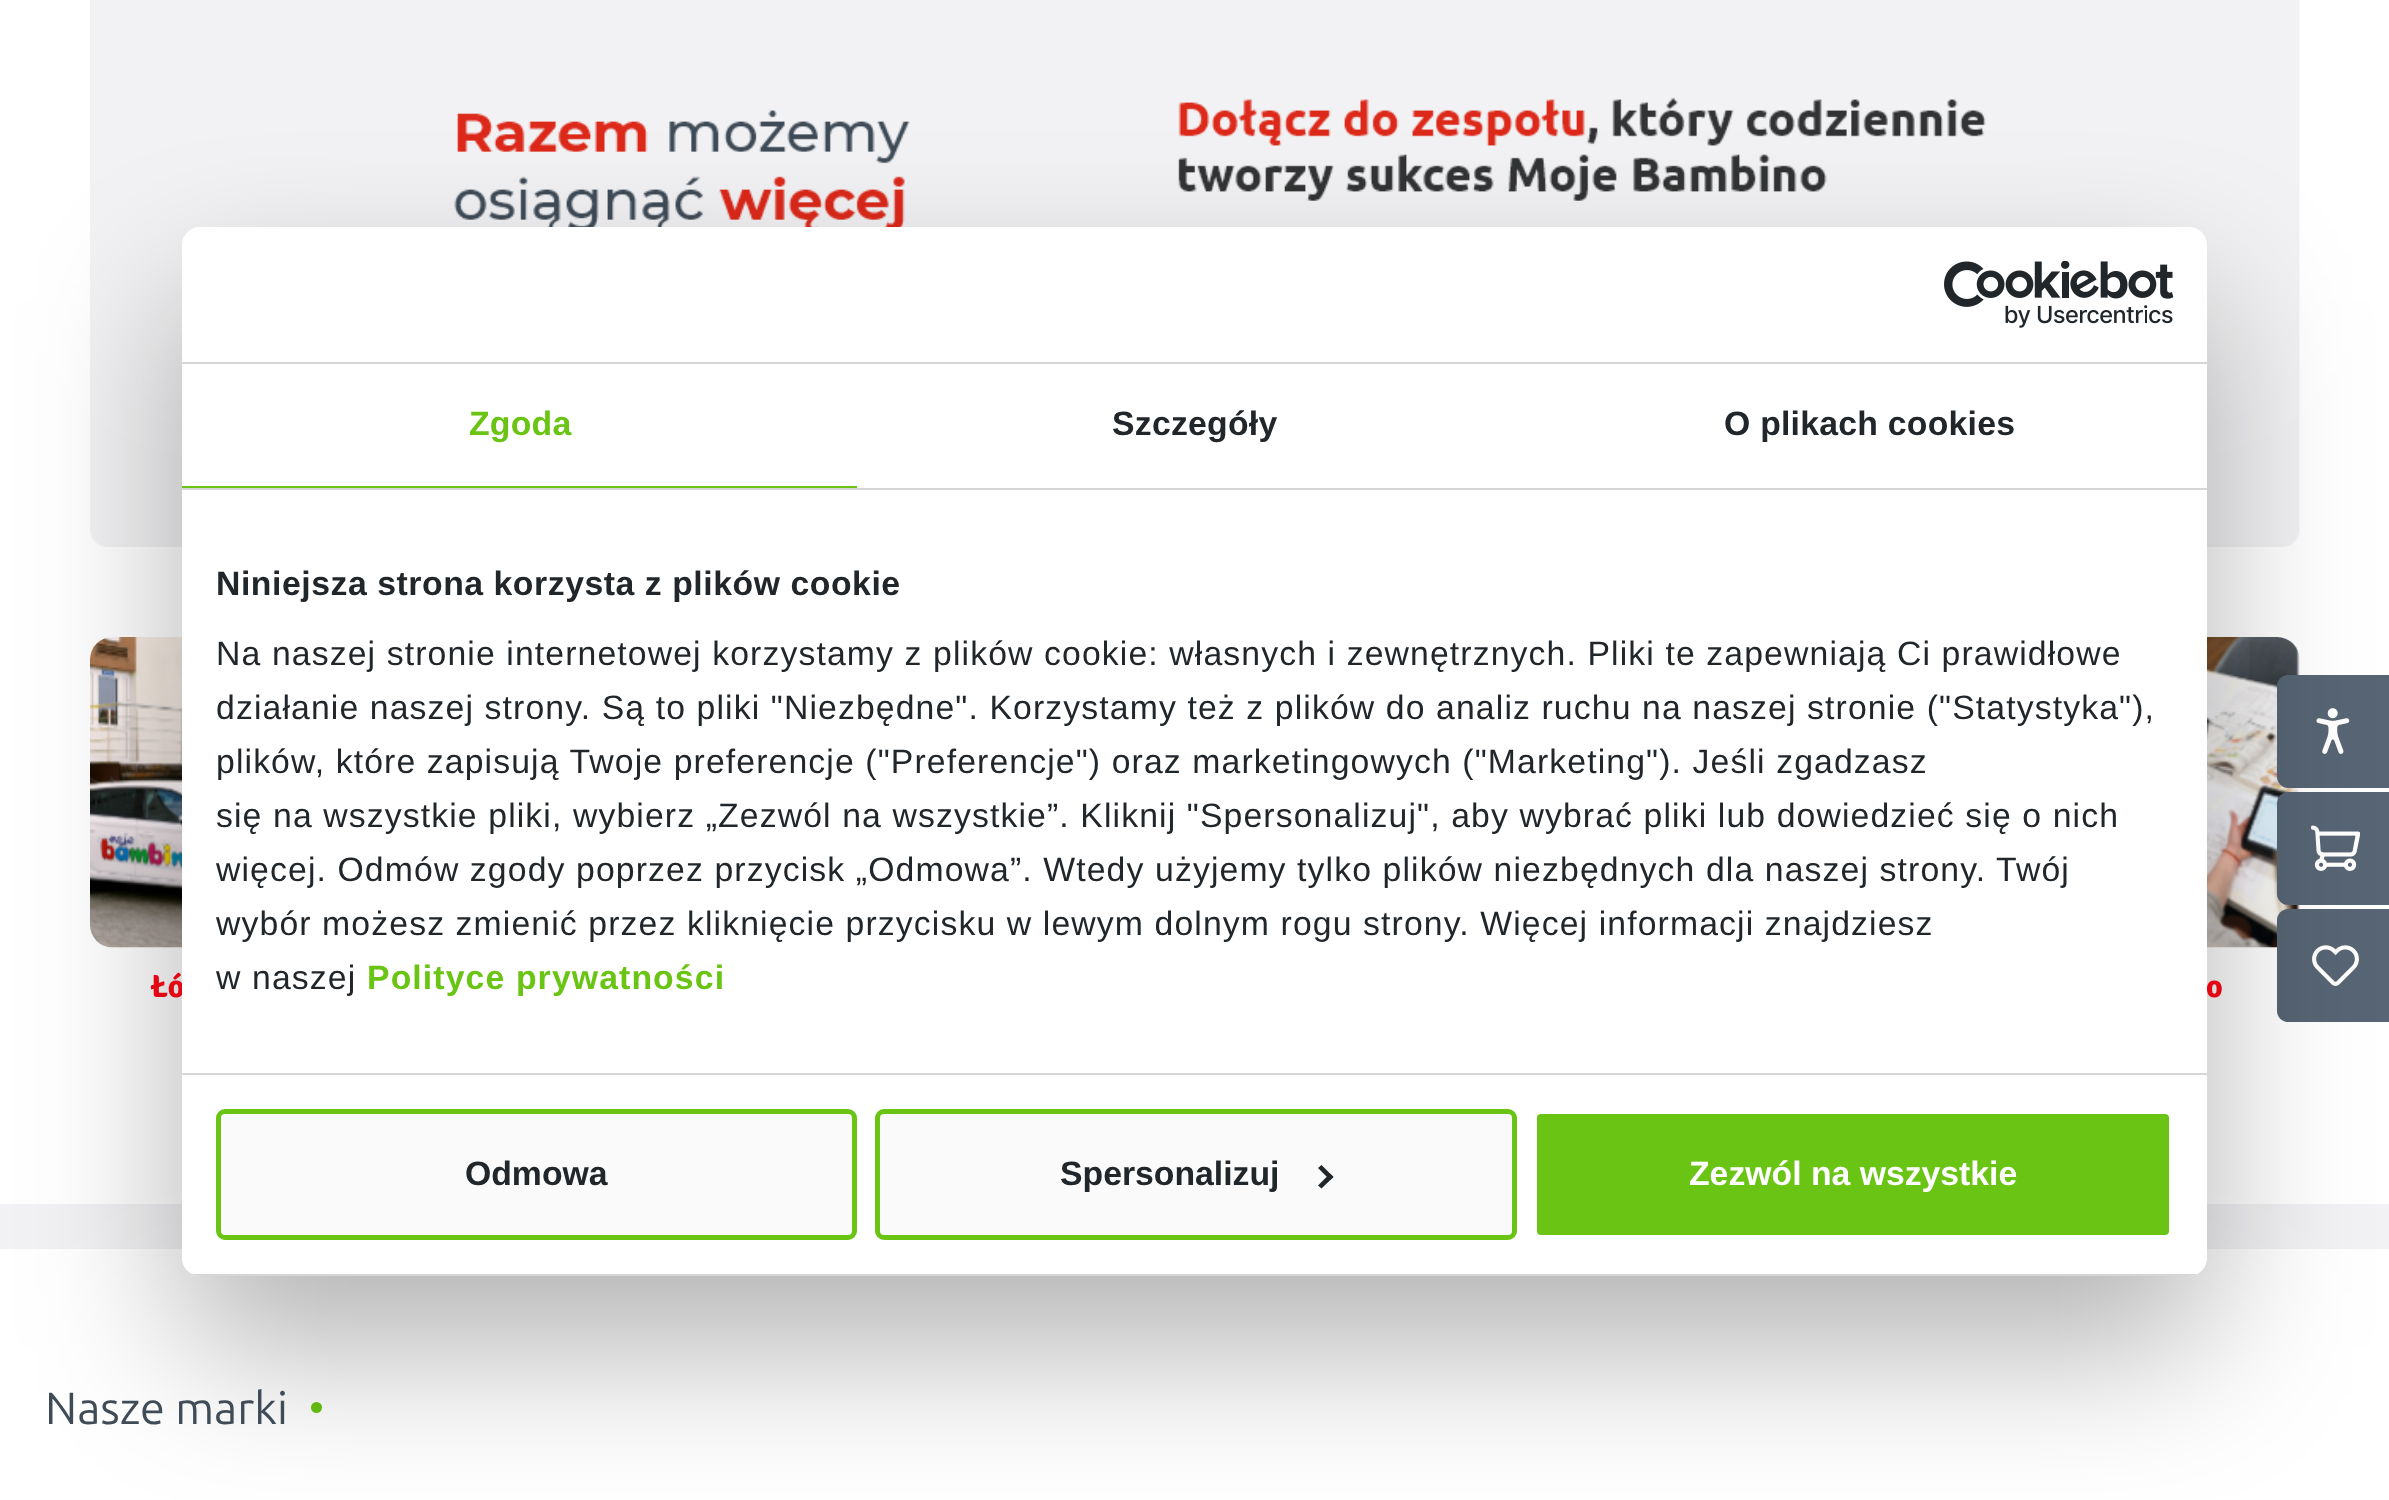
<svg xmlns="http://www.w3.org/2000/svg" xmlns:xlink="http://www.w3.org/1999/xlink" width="2389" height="1500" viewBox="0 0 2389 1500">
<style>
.cls-1{font:bold 32px Signika;fill:#e30613}
.cls-2{font:bold 33.75px Liberation Sans;fill:#ffffff}
.cls-3{font:bold 33.75px Liberation Sans;fill:#21262b}
.cls-4{font:bold 33.75px Liberation Sans;letter-spacing:1.12px;fill:#6ac413}
.cls-5{font:33.75px Liberation Sans;letter-spacing:1.12px;fill:#21262b}
.cls-6{font:bold 33.75px Liberation Sans;letter-spacing:0.55px;fill:#21262b}
.cls-7{font:bold 33.75px Liberation Sans;letter-spacing:0.25px;fill:#21262b}
.cls-8{font:bold 33.75px Liberation Sans;letter-spacing:0.25px;fill:#6ac413}
.cls-9{font:45px Ubuntu;fill:#3f4c58}
</style>
<defs>
<clipPath id="clip1"><rect x="182" y="227" width="2025" height="1049" rx="18"/></clipPath>
</defs>
<rect width="100%" height="100%" fill="#f2f2f4"/>
<rect fill="#ffffff" x="0" y="0" width="2389" height="1204"/>
<image xlink:href="image6.png" x="2207" y="637" width="93" height="311"/>
<path fill="#576574" d="M2288 675H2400V788H2288C2282 788 2277 783 2277 777V686C2277 680 2282 675 2288 675Z"/>
<image xlink:href="image1.png" x="2316" y="708" width="34" height="46"/>
<path fill="#576574" d="M2288 792H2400V905H2288C2282 905 2277 900 2277 894V803C2277 797 2282 792 2288 792Z"/>
<image xlink:href="image2.png" x="2311" y="825" width="49" height="46"/>
<path fill="#576574" d="M2288 909H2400V1022H2288C2282 1022 2277 1017 2277 1011V920C2277 914 2282 909 2288 909Z"/>
<image xlink:href="image3.png" x="2312" y="945" width="47" height="41"/>
<image xlink:href="image4.png" x="90" y="0" width="2210" height="547"/>
<image xlink:href="image5.png" x="90" y="637" width="92" height="311"/>
<rect fill="#ffffff" x="0" y="1249" width="2389" height="251"/>
<circle fill="#69c413" cx="316.5" cy="1407.5" r="5.5"/>
<rect fill="#000000" fill-opacity="0.3" filter="blur(76.5px)" x="182" y="299" width="2025" height="1049" rx="18"/>
<text class="cls-1" x="151" y="997">Łó</text>
<rect fill="#ffffff" x="182" y="227" width="2025" height="1049" rx="18"/>
<rect fill="#fafafa" stroke="#6ac413" stroke-width="5" x="877.5" y="1111.5" width="637" height="126" rx="6.5"/>
<path fill="#21262b" d="M1321.5 1165L1333.5 1177L1330 1180L1318 1168Z"/>
<path fill="#21262b" d="M1330 1173.5L1333.5 1177L1321.5 1188.5L1318 1185.5Z"/>
<rect fill="#6ac413" stroke="#ffffff" stroke-width="5" x="1534.5" y="1111.5" width="637" height="126" rx="6.5"/>
<text class="cls-2" x="1689" y="1185">Zezwól na wszystkie</text>
<text class="cls-3" x="1060" y="1185">Spersonalizuj</text>
<rect fill="#fafafa" stroke="#6ac413" stroke-width="5" x="218.5" y="1111.5" width="636" height="126" rx="6.5"/>
<text class="cls-3" x="465" y="1185">Odmowa</text>
<g clip-path="url(#clip1)">
<rect fill="#d6d6d6" x="192" y="1274" width="2005" height="2"/>
</g>
<text class="cls-4" x="367" y="989">Polityce prywatności</text>
<text class="cls-5" x="216" y="989">w naszej</text>
<text class="cls-5" x="216" y="935">wybór możesz zmienić przez kliknięcie przycisku w lewym dolnym rogu strony. Więcej informacji znajdziesz</text>
<text class="cls-5" x="216" y="881">więcej. Odmów zgody poprzez przycisk „Odmowa”. Wtedy użyjemy tylko plików niezbędnych dla naszej strony. Twój</text>
<text class="cls-5" x="216" y="827">się na wszystkie pliki, wybierz „Zezwól na wszystkie”. Kliknij "Spersonalizuj", aby wybrać pliki lub dowiedzieć się o nich</text>
<text class="cls-5" x="216" y="773">plików, które zapisują Twoje preferencje ("Preferencje") oraz marketingowych ("Marketing"). Jeśli zgadzasz</text>
<text class="cls-5" x="216" y="719">działanie naszej strony. Są to pliki "Niezbędne". Korzystamy też z plików do analiz ruchu na naszej stronie ("Statystyka"),</text>
<text class="cls-5" x="216" y="665">Na naszej stronie internetowej korzystamy z plików cookie: własnych i zewnętrznych. Pliki te zapewniają Ci prawidłowe</text>
<text class="cls-6" x="216" y="595">Niniejsza strona korzysta z plików cookie</text>
<rect fill="#d6d6d6" x="182" y="1073" width="2025" height="2"/>
<text class="cls-7" x="1724" y="435">O plikach cookies</text>
<text class="cls-7" x="1112" y="435">Szczegóły</text>
<text class="cls-8" x="469" y="435">Zgoda</text>
<rect fill="#6ac413" x="182" y="486" width="675" height="2"/>
<rect fill="#d6d6d6" x="182" y="488" width="2025" height="2"/>
<image xlink:href="image0.png" x="1944" y="261" width="230" height="67"/>
<rect fill="#d6d6d6" x="182" y="362" width="2025" height="2"/>
<text class="cls-1" x="2206" y="997">o</text>
<text class="cls-9" x="45" y="1424">Nasze marki</text>
</svg>
